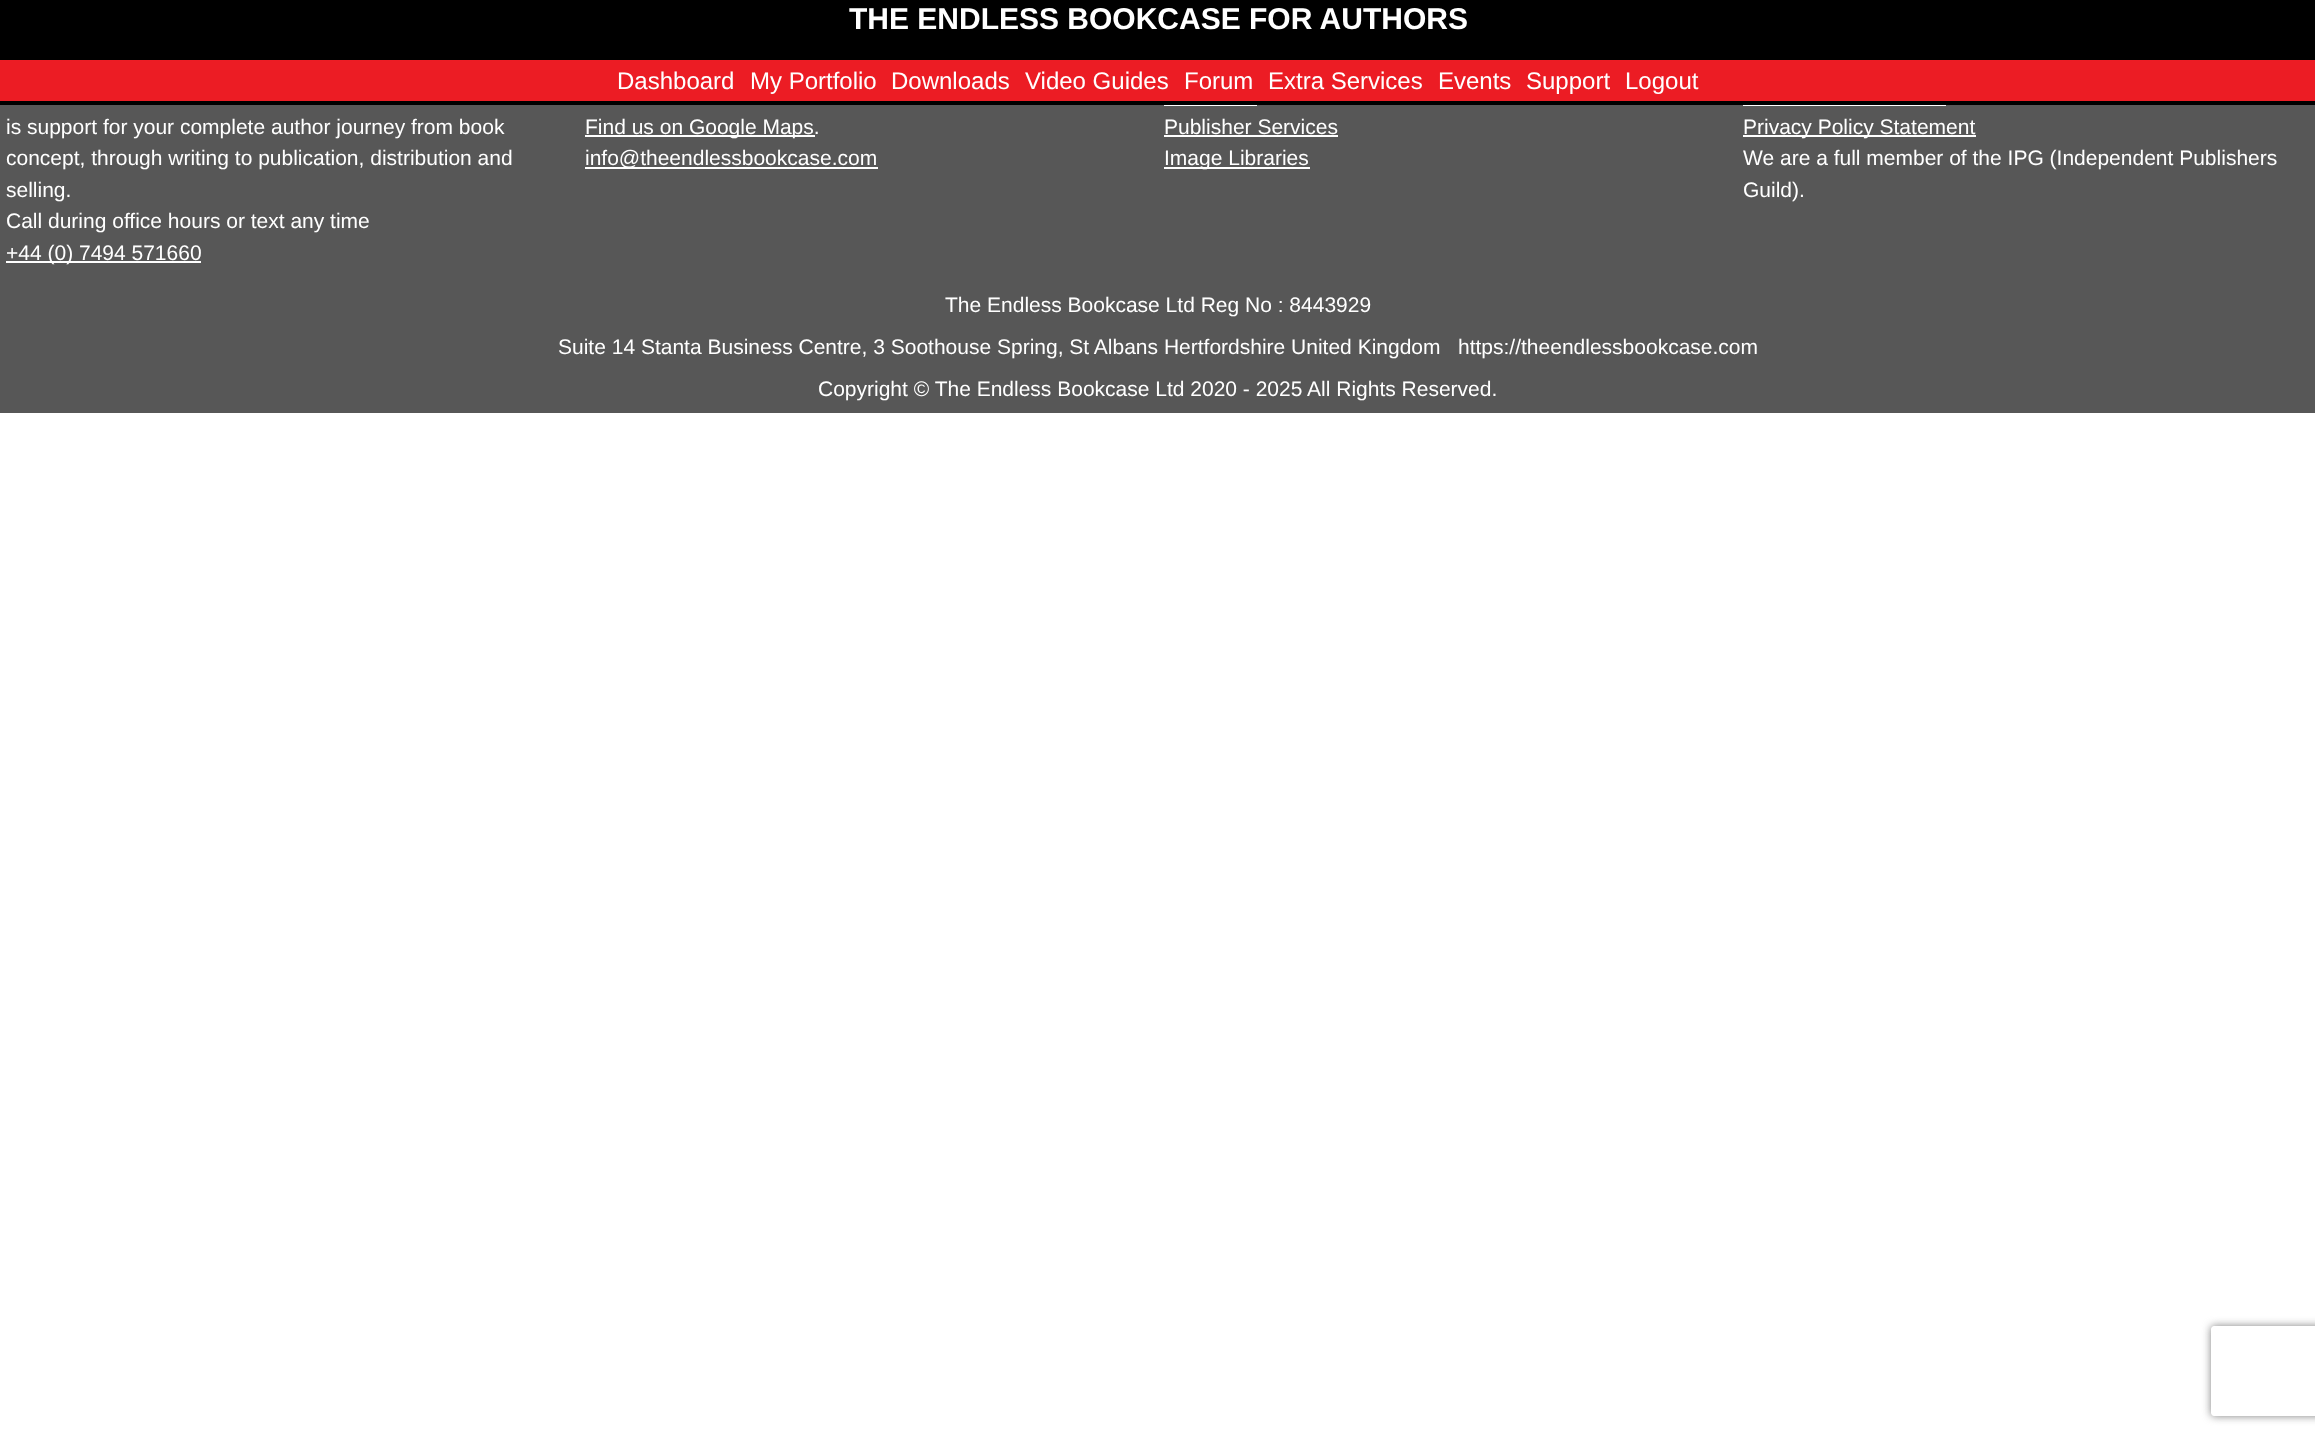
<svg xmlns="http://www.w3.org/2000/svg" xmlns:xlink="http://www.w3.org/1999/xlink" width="2315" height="1437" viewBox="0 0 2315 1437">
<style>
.cls-1{font:bold 30px Liberation Sans;fill:#ffffff}
.cls-2{font:24px Liberation Sans;fill:#ffffff}
.cls-3{font:21px Liberation Sans;fill:#ffffff}
</style>
<defs>
<clipPath id="clip1"><path d="M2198 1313H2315V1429H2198ZM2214 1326H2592C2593.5 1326 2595 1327.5 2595 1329V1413C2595 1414.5 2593.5 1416 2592 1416H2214C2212.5 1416 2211 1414.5 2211 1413V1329C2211 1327.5 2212.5 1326 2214 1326Z" clip-rule="evenodd"/></clipPath>
</defs>
<rect width="100%" height="100%" fill="#ffffff"/>
<rect fill="#000000" x="0" y="0" width="2315" height="105"/>
<rect fill="#ec1c24" x="0" y="60" width="2315" height="41"/>
<rect fill="#575757" x="0" y="105" width="2315" height="308"/>
<rect fill="#ffffff" x="6" y="261" width="195" height="2"/>
<rect fill="#ffffff" x="585" y="135" width="230" height="2"/>
<rect fill="#ffffff" x="585" y="167" width="293" height="2"/>
<rect fill="#ffffff" x="1164" y="105" width="93" height="1"/>
<rect fill="#ffffff" x="1164" y="135" width="174" height="2"/>
<rect fill="#ffffff" x="1164" y="167" width="146" height="2"/>
<rect fill="#ffffff" x="1743" y="105" width="203" height="1"/>
<rect fill="#ffffff" x="1743" y="135" width="233" height="2"/>
<g clip-path="url(#clip1)">
<rect fill="#808080" filter="blur(4px)" x="2211" y="1326" width="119" height="90" rx="3"/>
</g>
<text class="cls-1" x="849" y="29">THE ENDLESS BOOKCASE FOR AUTHORS</text>
<text class="cls-2" x="617" y="89">Dashboard</text>
<text class="cls-2" x="750" y="89">My Portfolio</text>
<text class="cls-2" x="891" y="89">Downloads</text>
<text class="cls-2" x="1025" y="89">Video Guides</text>
<text class="cls-2" x="1184" y="89">Forum</text>
<text class="cls-2" x="1268" y="89">Extra Services</text>
<text class="cls-2" x="1438" y="89">Events</text>
<text class="cls-2" x="1526" y="89">Support</text>
<text class="cls-2" x="1625" y="89">Logout</text>
<text class="cls-3"><tspan x="6" y="134">is support for your complete author journey from book</tspan><tspan x="6" y="165">concept, through writing to publication, distribution and</tspan><tspan x="6" y="197">selling.</tspan><tspan x="6" y="228">Call during office hours or text any time</tspan><tspan x="6" y="260">+44 (0) 7494 571660</tspan></text>
<text class="cls-3"><tspan x="585" y="134">Find us on Google Maps.</tspan><tspan x="585" y="165">info@theendlessbookcase.com</tspan></text>
<text class="cls-3"><tspan x="1164" y="134">Publisher Services</tspan><tspan x="1164" y="165">Image Libraries</tspan></text>
<text class="cls-3"><tspan x="1743" y="134">Privacy Policy Statement</tspan><tspan x="1743" y="165">We are a full member of the IPG (Independent Publishers</tspan><tspan x="1743" y="197">Guild).</tspan></text>
<text class="cls-3" x="945" y="312">The Endless Bookcase Ltd Reg No : 8443929</text>
<text class="cls-3" x="558" y="354">Suite 14 Stanta Business Centre, 3 Soothouse Spring, St Albans Hertfordshire United Kingdom</text>
<text class="cls-3" x="1458" y="354">https://theendlessbookcase.com</text>
<text class="cls-3" x="818" y="396">Copyright © The Endless Bookcase Ltd 2020 - 2025 All Rights Reserved.</text>
</svg>
